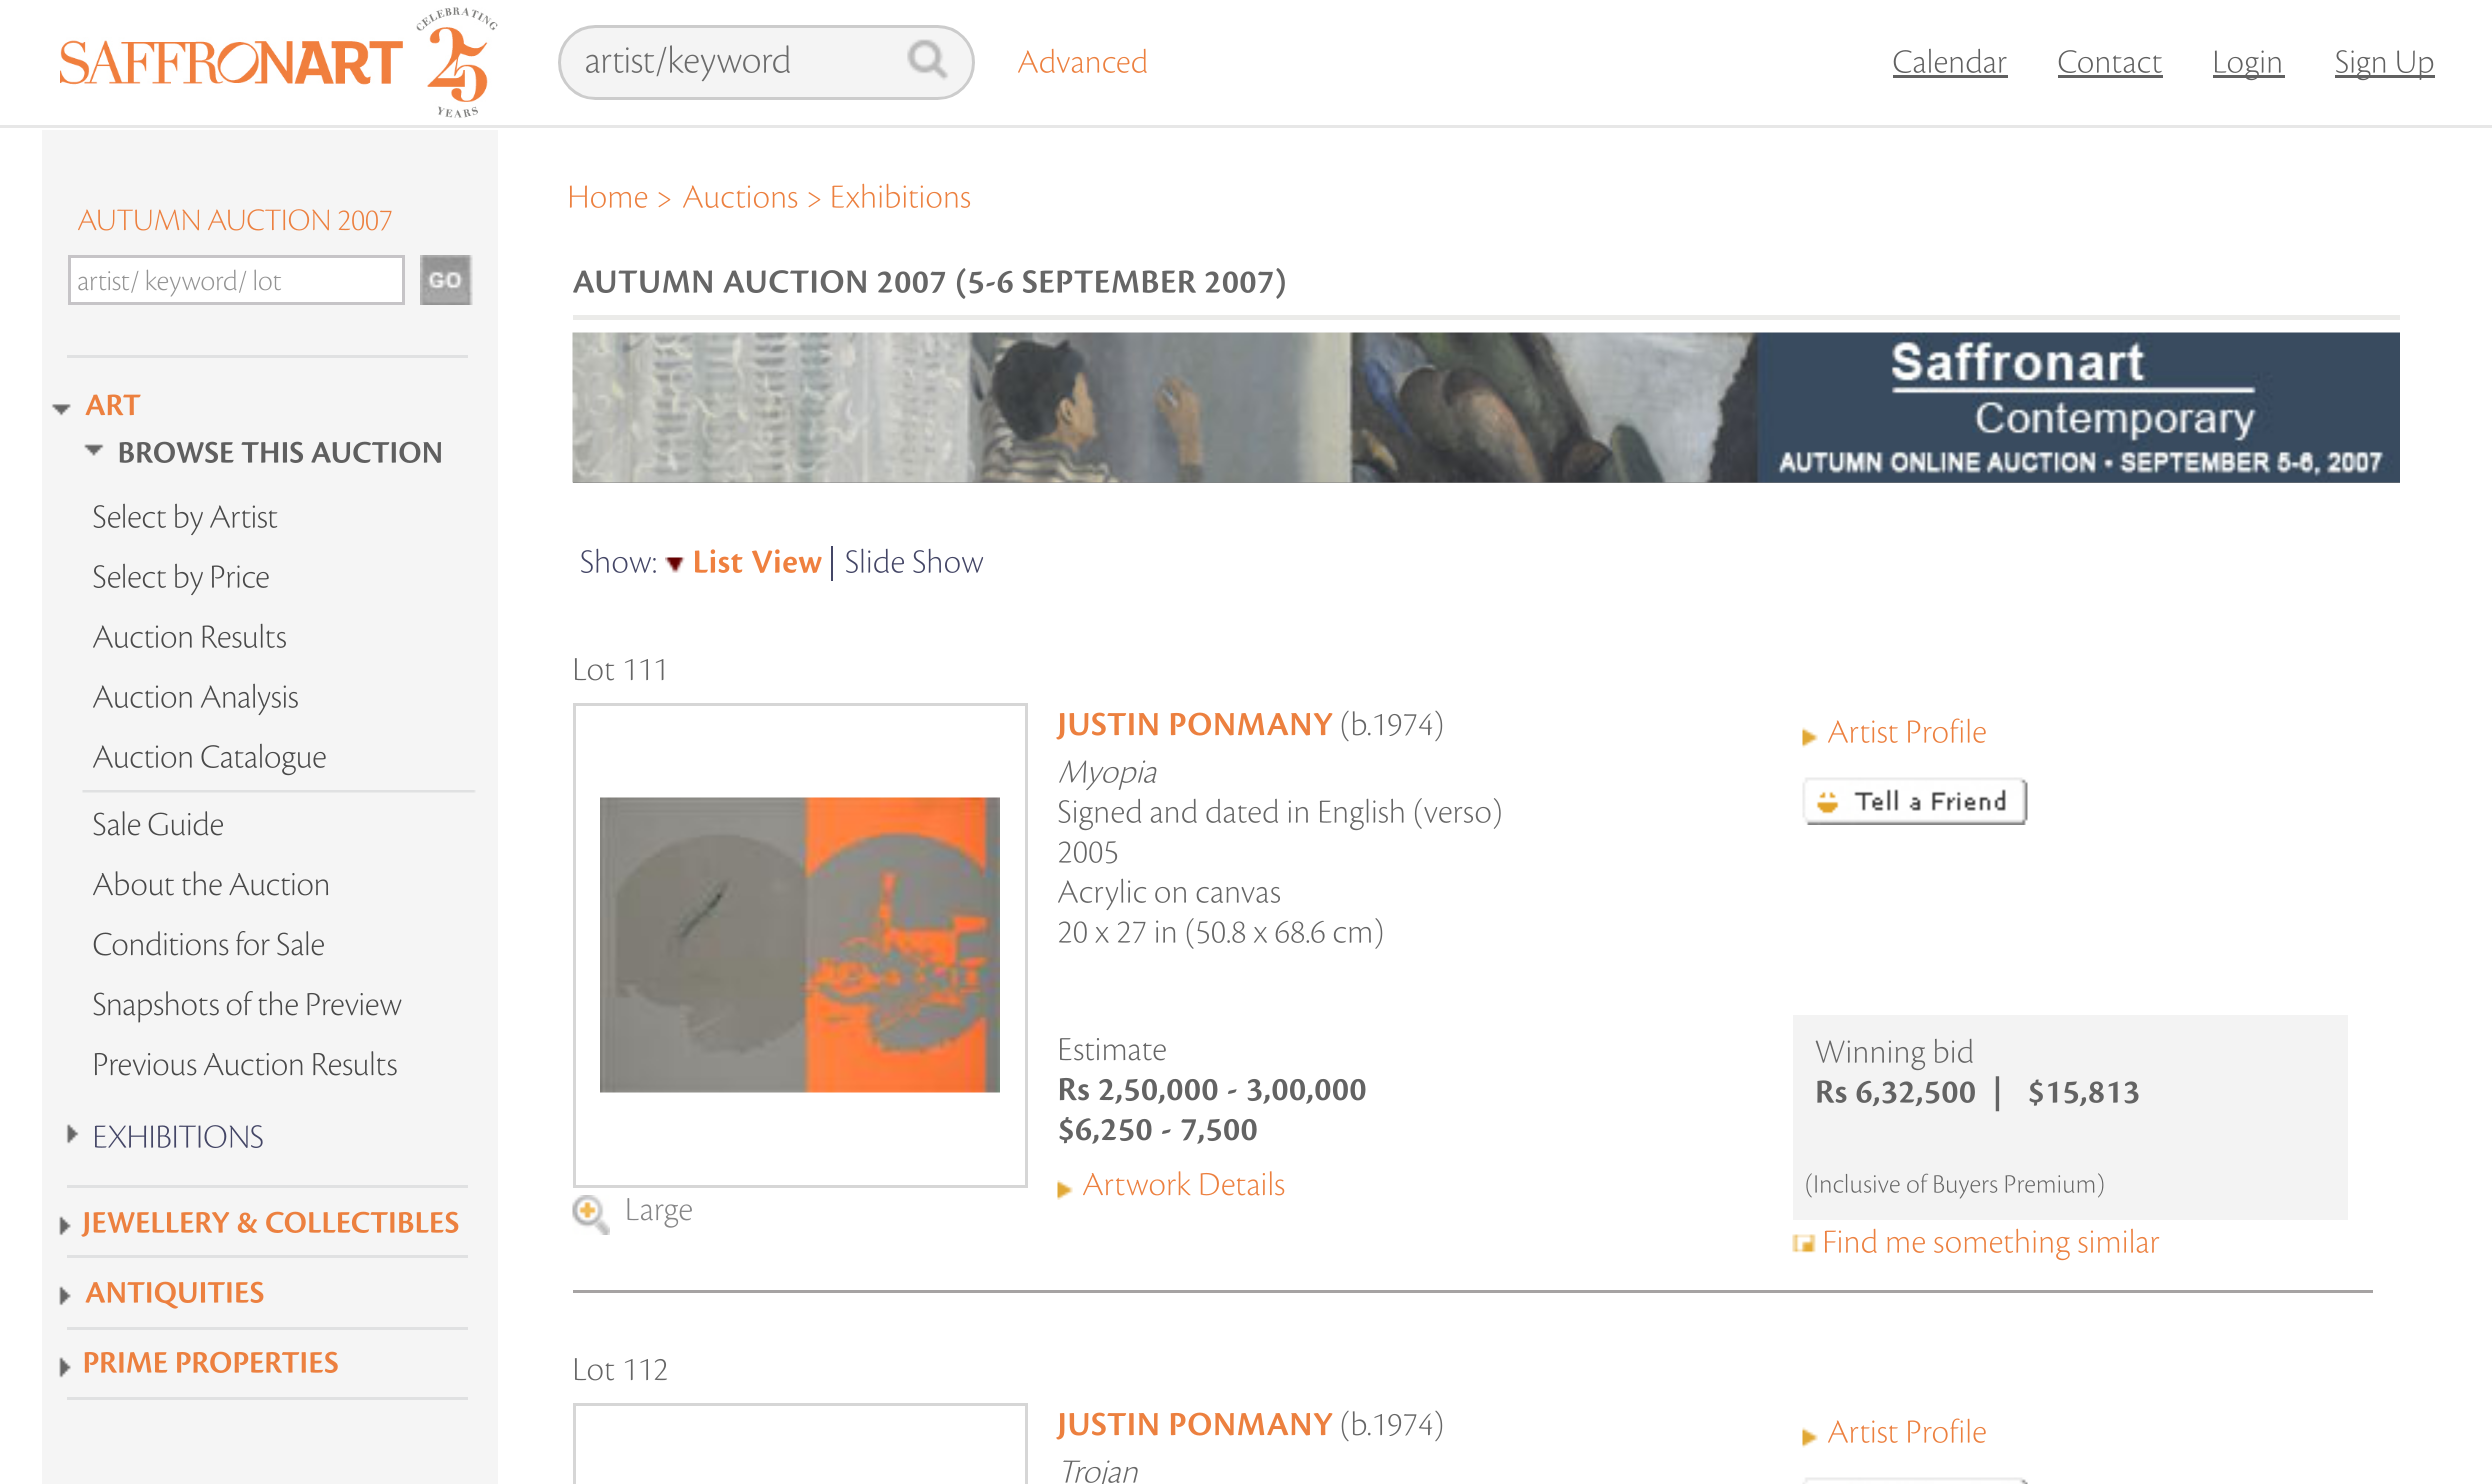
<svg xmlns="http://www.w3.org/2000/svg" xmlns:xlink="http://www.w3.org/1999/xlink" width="2492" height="1484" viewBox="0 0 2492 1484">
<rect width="100%" height="100%" fill="#ffffff"/>
<rect fill="#e7e7e7" x="0" y="125" width="2492" height="3"/>
<image xlink:href="image0.png" x="60" y="7" width="438" height="111"/>
<rect fill="#f4f4f4" stroke="#cccccc" stroke-width="3" x="559.5" y="26.5" width="414" height="72" rx="36"/>
<image xlink:href="image1.png" x="586" y="45" width="204" height="37"/>
<image xlink:href="image2.png" x="907" y="39" width="42" height="42"/>
<image xlink:href="image3.png" x="1018" y="48" width="129" height="25"/>
<image xlink:href="image4.png" x="1893" y="48" width="114" height="25"/>
<rect fill="#616161" x="1893" y="75" width="115" height="3"/>
<image xlink:href="image5.png" x="2058" y="50" width="104" height="23"/>
<rect fill="#616161" x="2058" y="75" width="105" height="3"/>
<rect fill="#616161" x="2213" y="75" width="72" height="3"/>
<image xlink:href="image6.png" x="2214" y="50" width="67" height="31"/>
<rect fill="#616161" x="2335" y="75" width="100" height="3"/>
<image xlink:href="image7.png" x="2336" y="50" width="98" height="31"/>
<image xlink:href="image8.png" x="569" y="185" width="79" height="23"/>
<image xlink:href="image9.png" x="658" y="192" width="13" height="16"/>
<image xlink:href="image10.png" x="683" y="185" width="115" height="23"/>
<image xlink:href="image9.png" x="808" y="192" width="13" height="16"/>
<image xlink:href="image11.png" x="832" y="183" width="139" height="25"/>
<rect fill="#f5f5f5" x="42" y="130" width="456" height="1354"/>
<image xlink:href="image12.png" x="78" y="209" width="314" height="22"/>
<rect fill="#ffffff" stroke="#c6c4c7" stroke-width="3" x="69.5" y="256.5" width="334" height="47"/>
<image xlink:href="image13.png" x="78" y="269" width="204" height="28"/>
<image xlink:href="image14.png" x="420" y="255" width="53" height="50"/>
<rect fill="#e0e1e2" x="67" y="355" width="401" height="3"/>
<image xlink:href="image15.png" x="51" y="404" width="20" height="12"/>
<image xlink:href="image16.png" x="85" y="394" width="56" height="22"/>
<image xlink:href="image17.png" x="84" y="444" width="20" height="12"/>
<image xlink:href="image18.png" x="119" y="441" width="322" height="22"/>
<image xlink:href="image19.png" x="93" y="503" width="185" height="33"/>
<image xlink:href="image20.png" x="93" y="563" width="176" height="33"/>
<image xlink:href="image21.png" x="93" y="623" width="193" height="25"/>
<image xlink:href="image22.png" x="93" y="683" width="205" height="33"/>
<image xlink:href="image23.png" x="93" y="743" width="233" height="33"/>
<image xlink:href="image24.png" x="82" y="790" width="394" height="3"/>
<image xlink:href="image25.png" x="93" y="811" width="130" height="25"/>
<image xlink:href="image26.png" x="93" y="871" width="236" height="25"/>
<image xlink:href="image27.png" x="93" y="931" width="231" height="25"/>
<image xlink:href="image28.png" x="93" y="991" width="309" height="32"/>
<image xlink:href="image29.png" x="94" y="1051" width="303" height="25"/>
<image xlink:href="image30.png" x="66" y="1124" width="13" height="20"/>
<image xlink:href="image31.png" x="94" y="1125" width="169" height="23"/>
<rect fill="#e0e1e2" x="67" y="1185" width="401" height="3"/>
<image xlink:href="image32.png" x="59" y="1216" width="12" height="20"/>
<image xlink:href="image33.png" x="81" y="1211" width="378" height="26"/>
<rect fill="#e0e1e2" x="67" y="1255" width="401" height="3"/>
<image xlink:href="image32.png" x="59" y="1286" width="12" height="20"/>
<image xlink:href="image34.png" x="85" y="1281" width="179" height="28"/>
<rect fill="#e0e1e2" x="67" y="1327" width="401" height="3"/>
<image xlink:href="image35.png" x="59" y="1357" width="12" height="21"/>
<image xlink:href="image36.png" x="84" y="1351" width="254" height="22"/>
<rect fill="#e0e1e2" x="67" y="1397" width="401" height="3"/>
<rect fill="#ebebe9" x="573" y="315" width="1827" height="5"/>
<image xlink:href="image37.png" x="573" y="270" width="373" height="23"/>
<image xlink:href="image38.png" x="956" y="268" width="329" height="31"/>
<rect fill="#808080" x="573" y="482" width="1827" height="1"/>
<image xlink:href="image39.png" x="572" y="332" width="1828" height="151"/>
<image xlink:href="image40.png" x="581" y="548" width="75" height="25"/>
<image xlink:href="image41.png" x="665" y="557" width="20" height="16"/>
<image xlink:href="image42.png" x="694" y="549" width="128" height="24"/>
<rect fill="#444666" x="831" y="546" width="2" height="35"/>
<image xlink:href="image43.png" x="846" y="548" width="138" height="25"/>
<image xlink:href="image44.png" x="574" y="658" width="41" height="23"/>
<image xlink:href="image45.png" x="624" y="659" width="40" height="22"/>
<rect fill="none" stroke="#d6d6d6" stroke-width="3" x="574.5" y="704.5" width="452" height="482"/>
<image xlink:href="image46.png" x="600" y="797" width="400" height="296"/>
<image xlink:href="image47.png" x="572" y="1195" width="38" height="40"/>
<image xlink:href="image48.png" x="627" y="1198" width="65" height="30"/>
<image xlink:href="image49.png" x="1056" y="712" width="277" height="28"/>
<image xlink:href="image50.png" x="1341" y="710" width="102" height="32"/>
<image xlink:href="image51.png" x="1059" y="760" width="98" height="31"/>
<image xlink:href="image52.png" x="1058" y="798" width="443" height="33"/>
<image xlink:href="image53.png" x="1058" y="841" width="60" height="23"/>
<image xlink:href="image54.png" x="1058" y="878" width="222" height="33"/>
<image xlink:href="image55.png" x="1058" y="920" width="118" height="24"/>
<image xlink:href="image56.png" x="1186" y="918" width="197" height="31"/>
<image xlink:href="image57.png" x="1802" y="727" width="16" height="21"/>
<image xlink:href="image58.png" x="1828" y="718" width="158" height="25"/>
<image xlink:href="image59.png" x="1802" y="777" width="226" height="48"/>
<image xlink:href="image60.png" x="1059" y="1038" width="107" height="23"/>
<image xlink:href="image61.png" x="1059" y="1077" width="307" height="27"/>
<image xlink:href="image62.png" x="1059" y="1117" width="198" height="27"/>
<image xlink:href="image63.png" x="1057" y="1180" width="16" height="20"/>
<image xlink:href="image64.png" x="1083" y="1171" width="202" height="25"/>
<rect fill="#f3f3f3" x="1793" y="1015" width="555" height="205"/>
<image xlink:href="image65.png" x="1815" y="1038" width="158" height="33"/>
<image xlink:href="image66.png" x="1817" y="1076" width="183" height="36"/>
<image xlink:href="image67.png" x="2029" y="1079" width="110" height="28"/>
<image xlink:href="image68.png" x="1806" y="1173" width="298" height="26"/>
<image xlink:href="image69.png" x="1792" y="1234" width="24" height="19"/>
<image xlink:href="image70.png" x="1824" y="1228" width="336" height="33"/>
<rect fill="#a6a3a3" x="573" y="1290" width="1800" height="3"/>
<image xlink:href="image44.png" x="574" y="1358" width="41" height="23"/>
<image xlink:href="image71.png" x="624" y="1358" width="44" height="23"/>
<rect fill="none" stroke="#d6d6d6" stroke-width="3" x="574.5" y="1404.5" width="452" height="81"/>
<image xlink:href="image49.png" x="1056" y="1412" width="277" height="28"/>
<image xlink:href="image50.png" x="1341" y="1410" width="102" height="32"/>
<image xlink:href="image72.png" x="1063" y="1460" width="75" height="24"/>
<image xlink:href="image57.png" x="1802" y="1427" width="16" height="21"/>
<image xlink:href="image58.png" x="1828" y="1418" width="158" height="25"/>
<image xlink:href="image73.png" x="1802" y="1477" width="226" height="7"/>
</svg>
